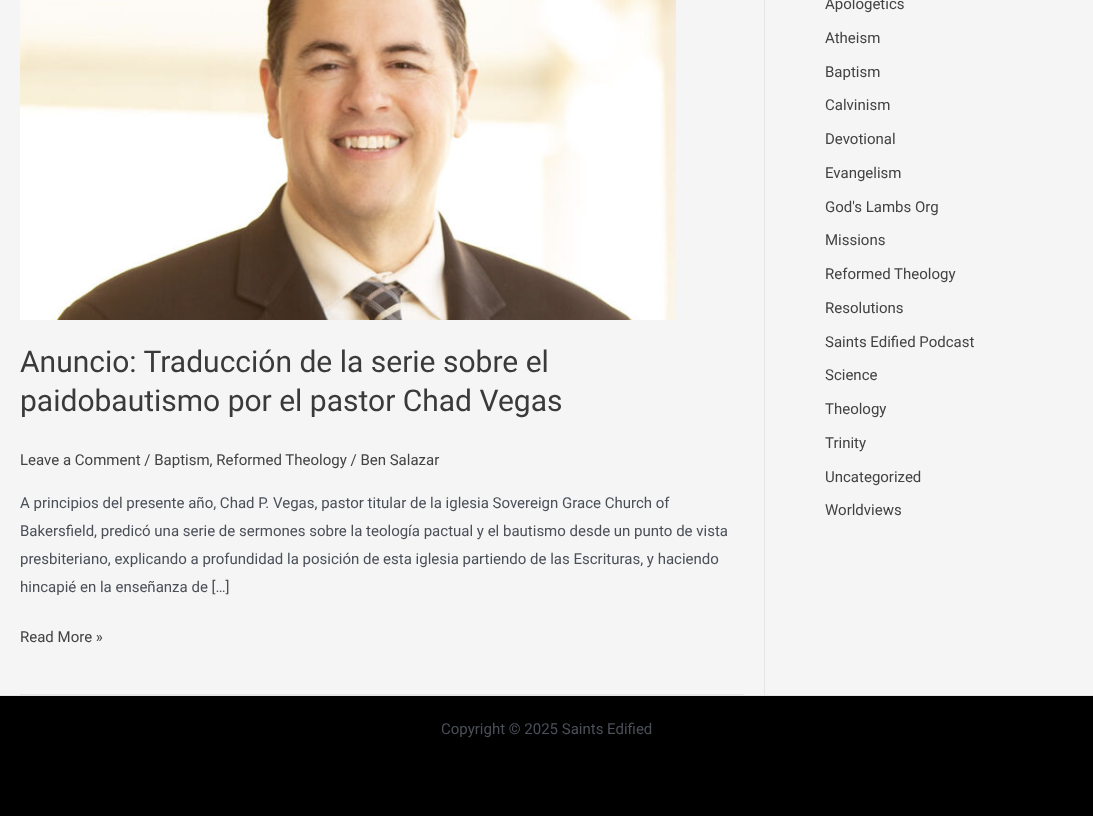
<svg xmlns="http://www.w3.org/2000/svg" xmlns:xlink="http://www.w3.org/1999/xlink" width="1093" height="816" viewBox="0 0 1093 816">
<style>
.cls-1{font:30px Roboto;fill:#3a3a3a}
.cls-2{font:15px Roboto;fill:#424242}
.cls-3{font:15px Roboto;fill:#4b4f58}
</style>
<rect width="100%" height="100%" fill="#f5f5f5"/>
<rect fill="#e5e5e5" x="764" y="0" width="1" height="695"/>
<rect fill="#e5e5e5" x="20" y="694" width="724" height="1"/>
<image xlink:href="image0.png" x="20" y="0" width="656" height="320"/>
<rect fill="#000000" x="0" y="696" width="1093" height="120"/>
<rect fill="#e5e5e5" x="0" y="695" width="1093" height="1"/>
<text class="cls-1"><tspan x="20" y="372">Anuncio: Traducción de la serie sobre el</tspan><tspan x="20" y="411">paidobautismo por el pastor Chad Vegas</tspan></text>
<text class="cls-2" x="20" y="465">Leave a Comment / Baptism, Reformed Theology / Ben Salazar</text>
<text class="cls-3"><tspan x="20" y="508">A principios del presente año, Chad P. Vegas, pastor titular de la iglesia Sovereign Grace Church of</tspan><tspan x="20" y="536">Bakersfield, predicó una serie de sermones sobre la teología pactual y el bautismo desde un punto de vista</tspan><tspan x="20" y="564">presbiteriano, explicando a profundidad la posición de esta iglesia partiendo de las Escrituras, y haciendo</tspan><tspan x="20" y="592">hincapié en la enseñanza de […]</tspan></text>
<text class="cls-2" x="20" y="642">Read More »</text>
<text class="cls-2" x="825" y="9">Apologetics</text>
<text class="cls-2" x="825" y="43">Atheism</text>
<text class="cls-2" x="825" y="77">Baptism</text>
<text class="cls-2" x="825" y="110">Calvinism</text>
<text class="cls-2" x="825" y="144">Devotional</text>
<text class="cls-2" x="825" y="178">Evangelism</text>
<text class="cls-2" x="825" y="212">God's Lambs Org</text>
<text class="cls-2" x="825" y="245">Missions</text>
<text class="cls-2" x="825" y="279">Reformed Theology</text>
<text class="cls-2" x="825" y="313">Resolutions</text>
<text class="cls-2" x="825" y="347">Saints Edified Podcast</text>
<text class="cls-2" x="825" y="380">Science</text>
<text class="cls-2" x="825" y="414">Theology</text>
<text class="cls-2" x="825" y="448">Trinity</text>
<text class="cls-2" x="825" y="482">Uncategorized</text>
<text class="cls-2" x="825" y="515">Worldviews</text>
<text class="cls-3" x="441" y="734">Copyright © 2025 Saints Edified</text>
</svg>
